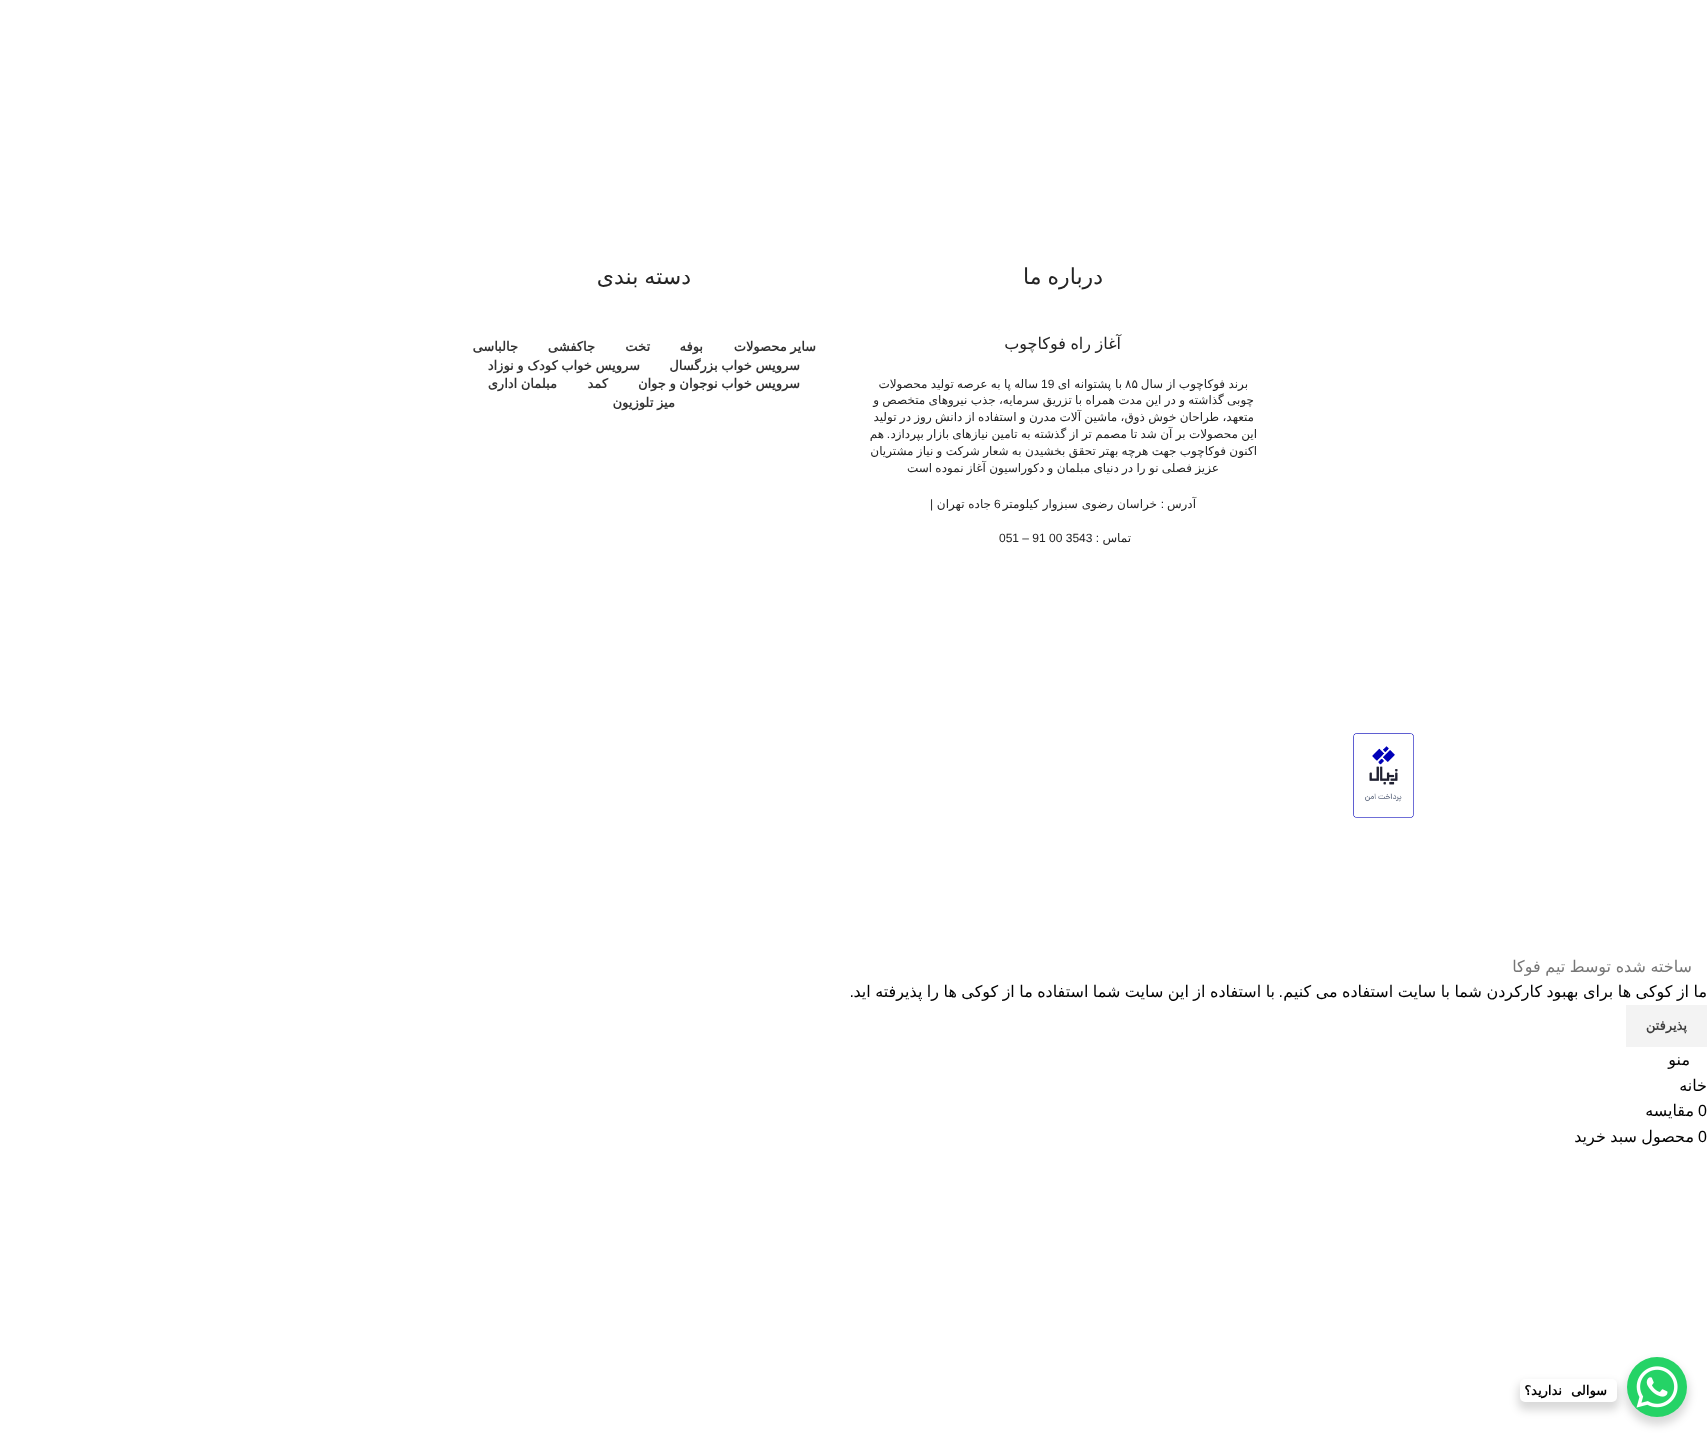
<svg xmlns="http://www.w3.org/2000/svg" xmlns:xlink="http://www.w3.org/1999/xlink" width="1707" height="1437" viewBox="0 0 1707 1437">
<style>
.cls-1{font:22px DejaVu Sans;direction:rtl;fill:#242424}
.cls-2{font:16px DejaVu Sans;direction:rtl;fill:#242424}
.cls-3{font:12px DejaVu Sans;direction:rtl;fill:#242424}
.cls-4{font:12px DejaVu Sans;fill:#242424}
.cls-5{font:12px Liberation Sans;fill:#242424}
.cls-6{font:12px Liberation Sans;direction:rtl;fill:#242424}
.cls-7{font:bold 13px DejaVu Sans;direction:rtl;fill:#333333}
.cls-8{font:16px DejaVu Sans;direction:rtl;fill:#767676}
.cls-9{font:16px DejaVu Sans;direction:rtl;fill:#000000}
.cls-10{font:16px Liberation Sans;direction:rtl;fill:#000000}
.cls-11{font:bold 13px DejaVu Sans;direction:rtl;fill:#3e3e3e}
.cls-12{font:16px Liberation Sans;fill:#000000}
.cls-13{font:bold 13px DejaVu Sans;letter-spacing:-0.4px;direction:rtl;fill:#000000}
</style>
<rect width="100%" height="100%" fill="#ffffff"/>
<image xlink:href="image0.png" x="1353" y="733" width="61" height="85"/>
<rect fill="#f3f3f3" x="1626" y="1005" width="81" height="42"/>
<rect fill="#000000" fill-opacity="0.15" filter="blur(4px)" x="1625" y="1361" width="64" height="64" rx="32"/>
<circle fill="#25d366" cx="1657" cy="1387" r="30"/>
<image xlink:href="image1.png" x="1636" y="1366" width="42" height="42"/>
<rect fill="#000000" fill-opacity="0.15" filter="blur(4px)" x="1518" y="1383" width="101" height="27" rx="7"/>
<rect fill="#ffffff" x="1520" y="1379" width="97" height="23" rx="5"/>
<text class="cls-1" x="1103" y="284" word-spacing="-1">درباره ما</text>
<text class="cls-2" x="1121" y="349" word-spacing="-0.5">آغاز راه فوکاچوب</text>
<text class="cls-3" x="1248" y="388" word-spacing="-0.5">برند فوکاچوب از سال</text>
<text class="cls-4" x="1125" y="388">۸۵</text>
<text class="cls-3" x="1122" y="388">با پشتوانه ای</text>
<text class="cls-5" x="1041" y="388">19</text>
<text class="cls-3" x="1038" y="388" word-spacing="-0.5">ساله پا به عرصه تولید محصولات</text>
<text class="cls-3"><tspan x="1254" y="404" word-spacing="-0.5">چوبی گذاشته و در این مدت همراه با تزریق سرمایه، جذب نیروهای متخصص و</tspan><tspan x="1254" y="421" word-spacing="-0.5">متعهد، طراحان خوش ذوق، ماشین آلات مدرن و استفاده از دانش روز در تولید</tspan></text>
<text class="cls-3" x="1257" y="438" word-spacing="-0.5">این محصولات بر آن شد تا مصمم تر از گذشته به تامین نیازهای بازار بپردازد</text>
<text class="cls-6" x="890" y="438">.</text>
<text class="cls-3" x="884" y="438">هم</text>
<text class="cls-3" x="1257" y="455" word-spacing="-0.5">اکنون فوکاچوب جهت هرچه بهتر تحقق بخشیدن به شعار شرکت و نیاز مشتریان</text>
<text class="cls-3" x="1219" y="472" word-spacing="-0.5">عزیز فصلی نو را در دنیای مبلمان و دکوراسیون آغاز نموده است</text>
<text class="cls-3" x="1196" y="508">آدرس</text>
<text class="cls-6" x="1164" y="508">:</text>
<text class="cls-3" x="1157" y="508">خراسان رضوی سبزوار کیلومتر</text>
<text class="cls-5" x="994" y="508">6</text>
<text class="cls-3" x="991" y="508">جاده تهران</text>
<text class="cls-6" x="933" y="508">|</text>
<text class="cls-3" x="1131" y="542">تماس</text>
<text class="cls-6" x="1099" y="542">:</text>
<text class="cls-5" x="999" y="542">051 – 91 00 3543</text>
<text class="cls-1" x="691" y="284" word-spacing="-1">دسته بندی</text>
<text class="cls-7" x="816" y="351" word-spacing="-0.5">سایر محصولات</text>
<text class="cls-7" x="703" y="351">بوفه</text>
<text class="cls-7" x="650" y="351">تخت</text>
<text class="cls-7" x="595" y="351">جاکفشی</text>
<text class="cls-7" x="518" y="351">جالباسی</text>
<text class="cls-7" x="800" y="370" word-spacing="-0.5">سرویس خواب بزرگسال</text>
<text class="cls-7" x="640" y="370" word-spacing="-0.5">سرویس خواب کودک و نوزاد</text>
<text class="cls-7" x="800" y="388" word-spacing="-0.5">سرویس خواب نوجوان و جوان</text>
<text class="cls-7" x="608" y="388">کمد</text>
<text class="cls-7" x="557" y="388" word-spacing="-0.5">مبلمان اداری</text>
<text class="cls-7" x="675" y="407" word-spacing="-0.5">میز تلوزیون</text>
<text class="cls-8" x="1692" y="972" word-spacing="-0.5">ساخته شده توسط تیم فوکا</text>
<text class="cls-9" x="1707" y="997" word-spacing="-0.6">ما از کوکی ها برای بهبود کارکردن شما با سایت استفاده می کنیم</text>
<text class="cls-10" x="1283" y="997">.</text>
<text class="cls-9" x="1275" y="997" word-spacing="-0.6">با استفاده از این سایت شما استفاده ما از کوکی ها را پذیرفته اید</text>
<text class="cls-10" x="854" y="997">.</text>
<text class="cls-11" x="1687" y="1030">پذیرفتن</text>
<text class="cls-9" x="1690" y="1065">منو</text>
<text class="cls-9" x="1707" y="1091">خانه</text>
<text class="cls-12" x="1698" y="1116">0</text>
<text class="cls-9" x="1694" y="1116">مقایسه</text>
<text class="cls-12" x="1698" y="1142">0</text>
<text class="cls-9" x="1694" y="1142">محصول</text>
<text class="cls-9" x="1637" y="1142" word-spacing="-0.5">سبد خرید</text>
<text class="cls-13" x="1607" y="1395" word-spacing="5">سوالی ندارید؟</text>
</svg>
